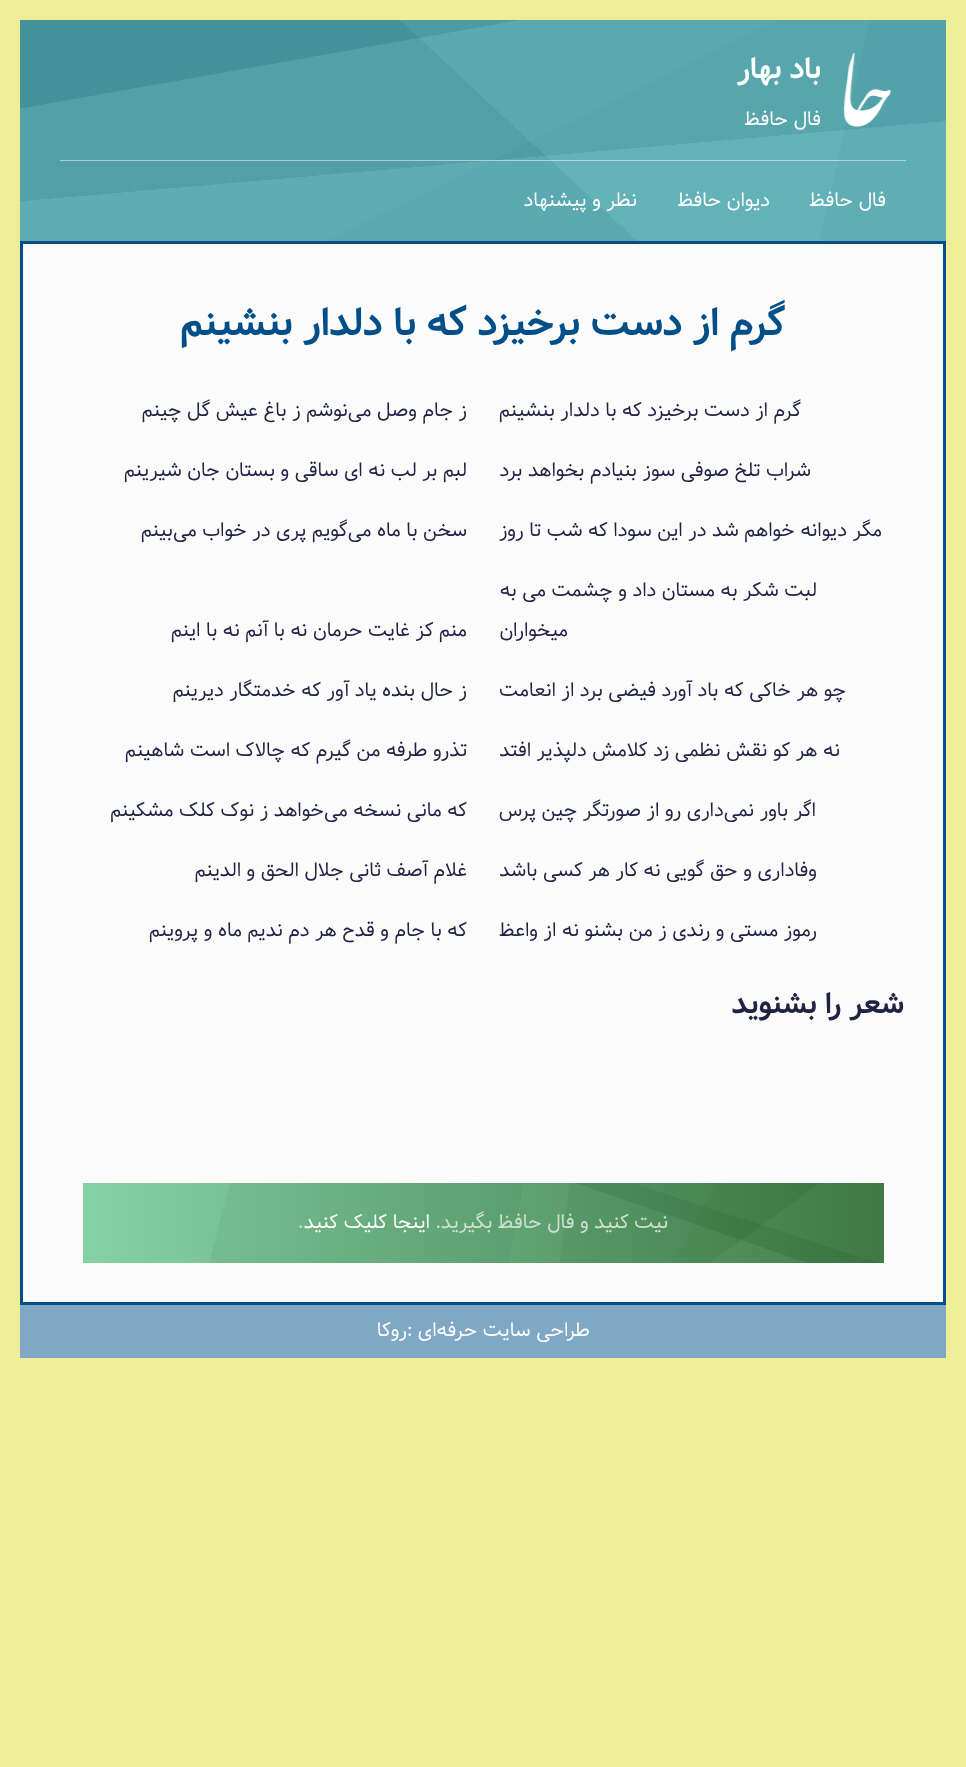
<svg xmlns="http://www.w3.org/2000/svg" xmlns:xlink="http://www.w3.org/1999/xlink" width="966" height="1767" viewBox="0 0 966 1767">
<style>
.cls-1{font:bold 30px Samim;direction:rtl;fill:#ffffff}
.cls-2{font:20px Samim;direction:rtl;fill:#ffffff}
.cls-3{font:bold 40px Samim;direction:rtl;fill:#004f88}
.cls-4{font:20px Samim;direction:rtl;fill:#222244}
.cls-5{font:bold 30px Samim;direction:rtl;fill:#222244}
.cls-6{font:20px Samim;direction:rtl;fill:#cee2d4}
.cls-7{font:20px Samim;fill:#cee2d4}
.cls-8{font:20px Samim;fill:#ffffff}
</style>
<defs>
<linearGradient id="g1" gradientUnits="userSpaceOnUse" x1="947" y1="238" x2="19" y2="24"><stop offset="0" stop-color="#4dc5cf"/><stop offset="0.13" stop-color="#4dc5cf"/><stop offset="0.13" stop-color="#53cbd5"/><stop offset="1" stop-color="#53cbd5"/></linearGradient>
<linearGradient id="g2" gradientUnits="userSpaceOnUse" x1="470" y1="-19" x2="496" y2="281"><stop offset="0" stop-color="#040404" stop-opacity="0.08"/><stop offset="0.6" stop-color="#040404" stop-opacity="0.08"/><stop offset="0.6" stop-color="#d9d9d9" stop-opacity="0.08"/><stop offset="1" stop-color="#d9d9d9" stop-opacity="0.08"/></linearGradient>
<linearGradient id="g3" gradientUnits="userSpaceOnUse" x1="754" y1="-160" x2="213" y2="421"><stop offset="0" stop-color="#878787" stop-opacity="0.09"/><stop offset="0.47" stop-color="#878787" stop-opacity="0.09"/><stop offset="0.47" stop-color="#090909" stop-opacity="0.09"/><stop offset="1" stop-color="#090909" stop-opacity="0.09"/></linearGradient>
<linearGradient id="g4" gradientUnits="userSpaceOnUse" x1="343" y1="-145" x2="623" y2="406"><stop offset="0" stop-color="#9c9c9c" stop-opacity="0.04"/><stop offset="0.56" stop-color="#9c9c9c" stop-opacity="0.04"/><stop offset="0.56" stop-color="#949494" stop-opacity="0.04"/><stop offset="1" stop-color="#949494" stop-opacity="0.04"/></linearGradient>
<linearGradient id="g5" gradientUnits="userSpaceOnUse" x1="516" y1="317" x2="450" y2="-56"><stop offset="0" stop-color="#bfbfbf" stop-opacity="0.1"/><stop offset="0.77" stop-color="#bfbfbf" stop-opacity="0.1"/><stop offset="0.77" stop-color="#2a2a2a" stop-opacity="0.1"/><stop offset="1" stop-color="#2a2a2a" stop-opacity="0.1"/></linearGradient>
<linearGradient id="g6" gradientUnits="userSpaceOnUse" x1="616" y1="402" x2="351" y2="-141"><stop offset="0" stop-color="#030303" stop-opacity="0.09"/><stop offset="0.45" stop-color="#030303" stop-opacity="0.09"/><stop offset="0.45" stop-color="#262626" stop-opacity="0.09"/><stop offset="1" stop-color="#262626" stop-opacity="0.09"/></linearGradient>
<linearGradient id="g7" gradientUnits="userSpaceOnUse" x1="83" y1="1223" x2="884" y2="1223"><stop offset="0" stop-color="#79f0ac"/><stop offset="1" stop-color="#16721e"/></linearGradient>
<linearGradient id="g8" gradientUnits="userSpaceOnUse" x1="867" y1="1325" x2="99" y2="1120"><stop offset="0" stop-color="#222222" stop-opacity="0.05"/><stop offset="0.82" stop-color="#222222" stop-opacity="0.05"/><stop offset="0.82" stop-color="#fbfbfb" stop-opacity="0.05"/><stop offset="1" stop-color="#fbfbfb" stop-opacity="0.05"/></linearGradient>
<linearGradient id="g9" gradientUnits="userSpaceOnUse" x1="433" y1="1376" x2="533" y2="1069"><stop offset="0" stop-color="#636363" stop-opacity="0.08"/><stop offset="0.76" stop-color="#636363" stop-opacity="0.08"/><stop offset="0.76" stop-color="#d6d6d6" stop-opacity="0.08"/><stop offset="1" stop-color="#d6d6d6" stop-opacity="0.08"/></linearGradient>
<linearGradient id="g10" gradientUnits="userSpaceOnUse" x1="90" y1="1146" x2="877" y2="1299"><stop offset="0" stop-color="#080808" stop-opacity="0.03"/><stop offset="0.54" stop-color="#080808" stop-opacity="0.03"/><stop offset="0.54" stop-color="#b5b5b5" stop-opacity="0.03"/><stop offset="1" stop-color="#b5b5b5" stop-opacity="0.03"/></linearGradient>
<linearGradient id="g11" gradientUnits="userSpaceOnUse" x1="801" y1="1406" x2="165" y2="1039"><stop offset="0" stop-color="#bababa" stop-opacity="0.05"/><stop offset="0.25" stop-color="#bababa" stop-opacity="0.05"/><stop offset="0.25" stop-color="#f8f8f8" stop-opacity="0.05"/><stop offset="1" stop-color="#f8f8f8" stop-opacity="0.05"/></linearGradient>
<linearGradient id="g12" gradientUnits="userSpaceOnUse" x1="84" y1="1173" x2="883" y2="1272"><stop offset="0" stop-color="#cfcfcf" stop-opacity="0.09"/><stop offset="0.6" stop-color="#cfcfcf" stop-opacity="0.09"/><stop offset="0.6" stop-color="#898989" stop-opacity="0.09"/><stop offset="1" stop-color="#898989" stop-opacity="0.09"/></linearGradient>
<linearGradient id="g13" gradientUnits="userSpaceOnUse" x1="538" y1="1063" x2="428" y2="1382"><stop offset="0" stop-color="#2f2f2f" stop-opacity="0.06"/><stop offset="0.3" stop-color="#2f2f2f" stop-opacity="0.06"/><stop offset="0.3" stop-color="#e6e6e6" stop-opacity="0.06"/><stop offset="1" stop-color="#e6e6e6" stop-opacity="0.06"/></linearGradient>
<linearGradient id="g14" gradientUnits="userSpaceOnUse" x1="326" y1="1006" x2="641" y2="1439"><stop offset="0" stop-color="#353535" stop-opacity="0.08"/><stop offset="0.81" stop-color="#353535" stop-opacity="0.08"/><stop offset="0.81" stop-color="#8d8d8d" stop-opacity="0.08"/><stop offset="1" stop-color="#8d8d8d" stop-opacity="0.08"/></linearGradient>
</defs>
<rect width="100%" height="100%" fill="#eeee99"/>
<rect fill="url(#g1)" x="20" y="20" width="926" height="221"/>
<rect fill="url(#g2)" x="20" y="20" width="926" height="221"/>
<rect fill="url(#g3)" x="20" y="20" width="926" height="221"/>
<rect fill="url(#g4)" x="20" y="20" width="926" height="221"/>
<rect fill="url(#g5)" x="20" y="20" width="926" height="221"/>
<rect fill="url(#g6)" x="20" y="20" width="926" height="221"/>
<image xlink:href="image0.png" x="843" y="53" width="49" height="74"/>
<rect fill="#ffffff" fill-opacity="0.5" x="60" y="160" width="846" height="1"/>
<rect fill="#fbfbfb" stroke="#004f88" stroke-width="3" x="21.5" y="242.5" width="923" height="1061"/>
<rect fill="url(#g7)" x="83" y="1183" width="801" height="80"/>
<rect fill="url(#g8)" x="83" y="1183" width="801" height="80"/>
<rect fill="url(#g9)" x="83" y="1183" width="801" height="80"/>
<rect fill="url(#g10)" x="83" y="1183" width="801" height="80"/>
<rect fill="url(#g11)" x="83" y="1183" width="801" height="80"/>
<rect fill="url(#g12)" x="83" y="1183" width="801" height="80"/>
<rect fill="url(#g13)" x="83" y="1183" width="801" height="80"/>
<rect fill="url(#g14)" x="83" y="1183" width="801" height="80"/>
<rect fill="#80a7c4" x="20" y="1305" width="926" height="53"/>
<text class="cls-1" x="821" y="78">باد بهار</text>
<text class="cls-2" x="821" y="125">فال حافظ</text>
<text class="cls-2" x="886" y="206">فال حافظ</text>
<text class="cls-2" x="770" y="206">دیوان حافظ</text>
<text class="cls-2" x="637" y="206">نظر و پیشنهاد</text>
<text class="cls-3" x="785" y="335">گرم از دست برخیزد که با دلدار بنشینم</text>
<text class="cls-4" x="801" y="416">گرم از دست برخیزد که با دلدار بنشینم</text>
<text class="cls-4" x="467" y="416">ز جام وصل می‌نوشم ز باغ عیش گل چینم</text>
<text class="cls-4" x="811" y="476">شراب تلخ صوفی سوز بنیادم بخواهد برد</text>
<text class="cls-4" x="467" y="476">لبم بر لب نه ای ساقی و بستان جان شیرینم</text>
<text class="cls-4" x="882" y="536">مگر دیوانه خواهم شد در این سودا که شب تا روز</text>
<text class="cls-4" x="467" y="536">سخن با ماه می‌گویم پری در خواب می‌بینم</text>
<text class="cls-4" x="817" y="596">لبت شکر به مستان داد و چشمت می به</text>
<text class="cls-4" x="568" y="636">میخواران</text>
<text class="cls-4" x="467" y="636">منم کز غایت حرمان نه با آنم نه با اینم</text>
<text class="cls-4" x="846" y="696">چو هر خاکی که باد آورد فیضی برد از انعامت</text>
<text class="cls-4" x="467" y="696">ز حال بنده یاد آور که خدمتگار دیرینم</text>
<text class="cls-4" x="840" y="756">نه هر کو نقش نظمی زد کلامش دلپذیر افتد</text>
<text class="cls-4" x="467" y="756">تذرو طرفه من گیرم که چالاک است شاهینم</text>
<text class="cls-4" x="816" y="816">اگر باور نمی‌داری رو از صورتگر چین پرس</text>
<text class="cls-4" x="467" y="816">که مانی نسخه می‌خواهد ز نوک کلک مشکینم</text>
<text class="cls-4" x="817" y="876">وفاداری و حق گویی نه کار هر کسی باشد</text>
<text class="cls-4" x="467" y="876">غلام آصف ثانی جلال الحق و الدینم</text>
<text class="cls-4" x="817" y="936">رموز مستی و رندی ز من بشنو نه از واعظ</text>
<text class="cls-4" x="467" y="936">که با جام و قدح هر دم ندیم ماه و پروینم</text>
<text class="cls-5" x="904" y="1013">شعر را بشنوید</text>
<text class="cls-6" x="668" y="1228">نیت کنید و فال حافظ بگیرید.</text>
<text class="cls-2" x="430" y="1228">اینجا کلیک کنید</text>
<text class="cls-7" x="298" y="1228">.</text>
<text class="cls-2" x="590" y="1336">طراحی سایت حرفه‌ای</text>
<text class="cls-8" x="407" y="1336">:</text>
<text class="cls-2" x="407" y="1336">روکا</text>
</svg>
